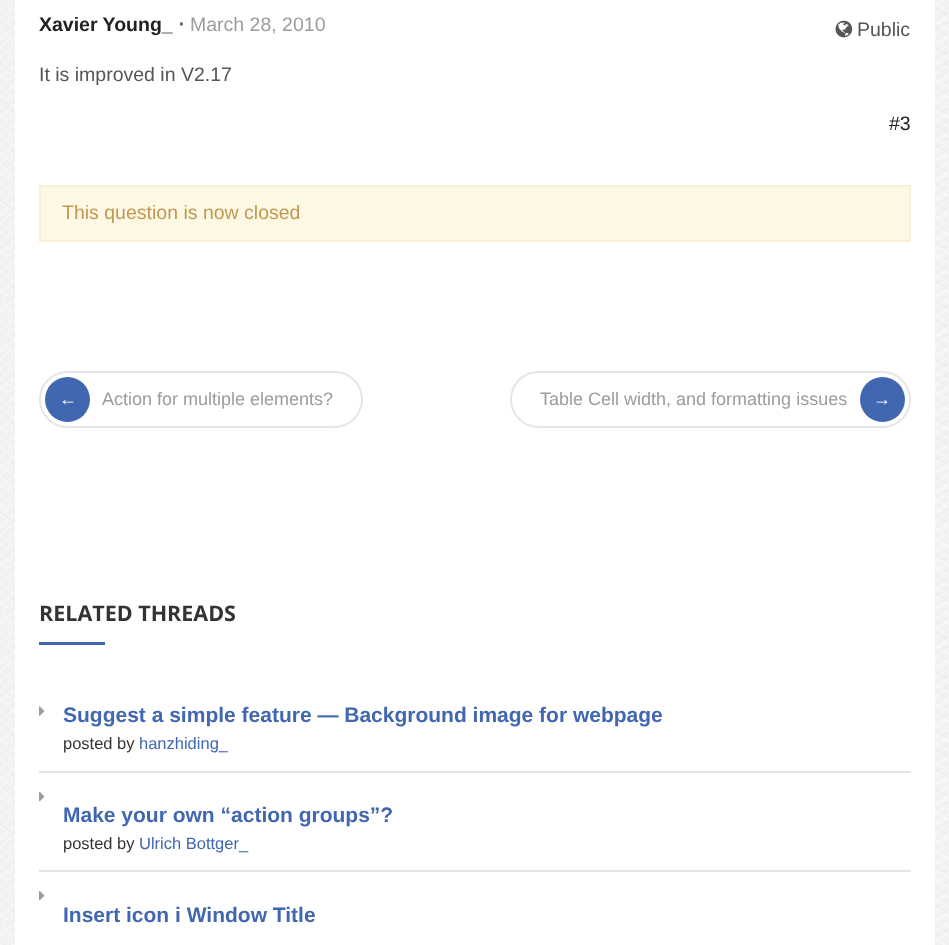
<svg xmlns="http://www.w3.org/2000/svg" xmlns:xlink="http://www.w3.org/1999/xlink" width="949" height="945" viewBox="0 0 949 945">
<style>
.cls-1{font:bold 19.5px Liberation Sans;fill:#222222}
.cls-2{font:bold 19.5px DejaVu Sans;fill:#555555}
.cls-3{font:19.5px Liberation Sans;fill:#9c9c9c}
.cls-4{font:19.5px Liberation Sans;fill:#555555}
.cls-5{font:19.5px Liberation Sans;fill:#222222}
.cls-6{font:19.5px Liberation Sans;fill:#c09853}
.cls-7{font:18px Liberation Sans;fill:#ffffff}
.cls-8{font:18px Liberation Sans;fill:#9c9c9c}
.cls-9{font:bold 21.5px Open Sans;fill:#333333}
.cls-10{font:bold 21px Liberation Sans;fill:#4167b0}
.cls-11{font:16.5px Liberation Sans;fill:#333333}
.cls-12{font:16.5px Liberation Sans;fill:#4167b0}
</style>
<rect width="100%" height="100%" fill="#ffffff"/>
<image xlink:href="image0.png" x="0" y="0" width="949" height="945"/>
<rect fill="#ffffff" x="15" y="0" width="920" height="945"/>
<image xlink:href="image1.png" x="835" y="20" width="18" height="18"/>
<rect fill="#fcf8e3" stroke="#fbeed5" stroke-width="2" x="40" y="186" width="870" height="55"/>
<rect fill="none" stroke="#e6e6e6" stroke-width="2" x="40" y="372" width="322" height="55" rx="27.5"/>
<circle fill="#4167b0" cx="67.5" cy="399.5" r="22.5"/>
<rect fill="none" stroke="#e6e6e6" stroke-width="2" x="511" y="372" width="399" height="55" rx="27.5"/>
<circle fill="#4167b0" cx="882.5" cy="399.5" r="22.5"/>
<rect fill="#4167b0" x="39" y="642" width="66" height="3"/>
<rect fill="#e5e5e5" x="39" y="771" width="872" height="2"/>
<image xlink:href="image2.png" x="39" y="706" width="6" height="10"/>
<rect fill="#e5e5e5" x="39" y="870" width="872" height="2"/>
<image xlink:href="image3.png" x="39" y="792" width="6" height="10"/>
<image xlink:href="image3.png" x="39" y="891" width="6" height="10"/>
<text class="cls-1" x="39" y="31">Xavier Young_</text>
<text class="cls-2" x="178" y="31">⋅</text>
<text class="cls-3" x="190" y="31">March 28, 2010</text>
<text class="cls-4" x="857" y="36">Public</text>
<text class="cls-4" x="39" y="81">It is improved in V2.17</text>
<text class="cls-5" x="889" y="130">#3</text>
<text class="cls-6" x="62" y="219">This question is now closed</text>
<text class="cls-7" x="59" y="405">←</text>
<text class="cls-8" x="102" y="405">Action for multiple elements?</text>
<text class="cls-8" x="540" y="405">Table Cell width, and formatting issues</text>
<text class="cls-7" x="873" y="405">→</text>
<text class="cls-9" x="39" y="621">RELATED THREADS</text>
<text class="cls-10" x="63" y="722">Suggest a simple feature — Background image for webpage</text>
<text class="cls-11" x="63" y="749">posted by</text>
<text class="cls-12" x="139" y="749">hanzhiding_</text>
<text class="cls-10" x="63" y="822">Make your own “action groups”?</text>
<text class="cls-11" x="63" y="849">posted by</text>
<text class="cls-12" x="139" y="849">Ulrich Bottger_</text>
<text class="cls-10" x="63" y="922">Insert icon i Window Title</text>
</svg>
